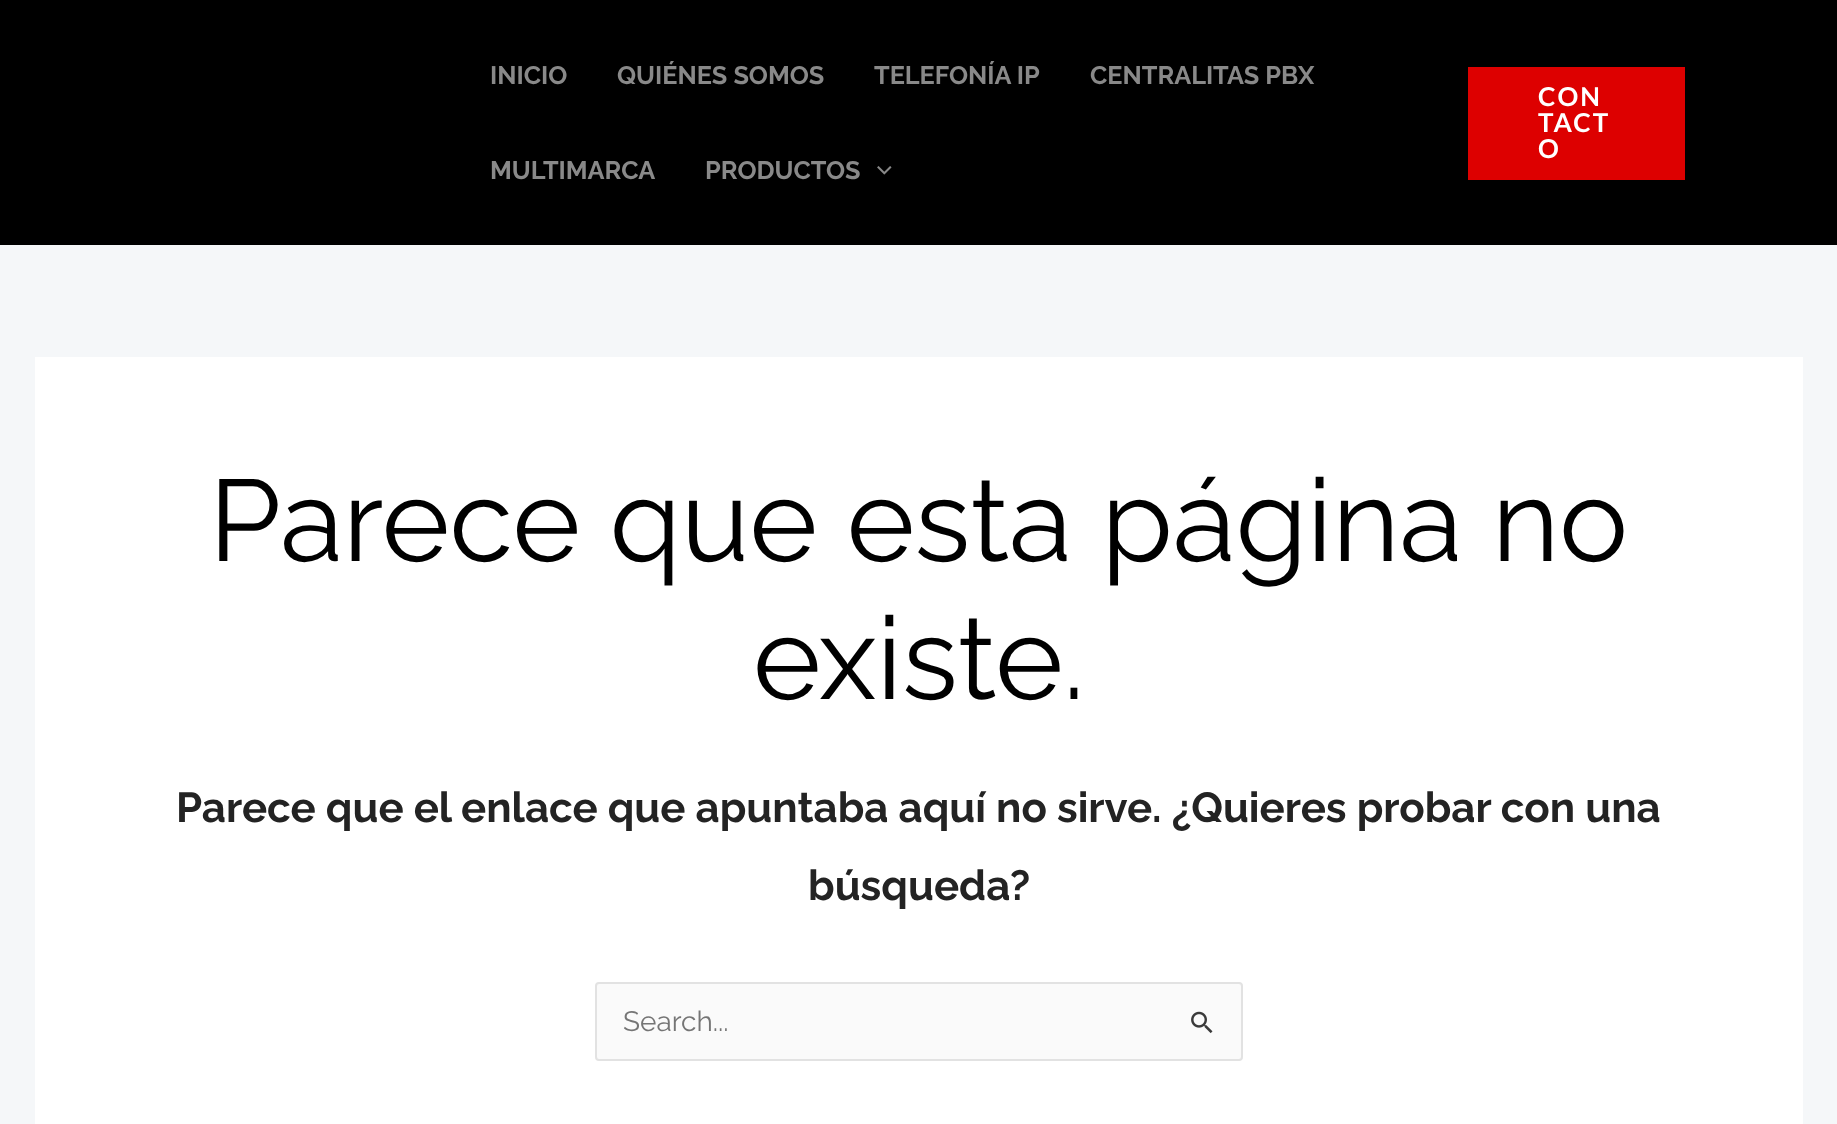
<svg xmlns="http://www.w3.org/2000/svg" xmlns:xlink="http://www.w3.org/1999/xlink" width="1837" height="1124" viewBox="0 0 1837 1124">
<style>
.cls-1{font:bold 25.25px Raleway;fill:#898989}
.cls-2{font:bold 26px Lato;letter-spacing:2px;fill:#ffffff}
.cls-3{font:115.5px Raleway;fill:#000000}
.cls-4{font:bold 42px Raleway;fill:#232323}
.cls-5{font:28px Raleway;fill:#757575}
</style>
<rect width="100%" height="100%" fill="#f5f7f9"/>
<rect fill="#000000" x="0" y="0" width="1837" height="245"/>
<image xlink:href="image0.png" x="877" y="166" width="15" height="9"/>
<rect fill="#dd0000" x="1468" y="67" width="217" height="113"/>
<rect fill="#ffffff" x="35" y="357" width="1768" height="767"/>
<rect fill="#fafafa" stroke="#e2e2e2" stroke-width="2" x="596" y="983" width="646" height="77" rx="3"/>
<image xlink:href="image1.png" x="1191" y="1011" width="22" height="23"/>
<text class="cls-1" x="490" y="84">INICIO</text>
<text class="cls-1" x="617" y="84">QUIÉNES SOMOS</text>
<text class="cls-1" x="874" y="84">TELEFONÍA IP</text>
<text class="cls-1" x="1090" y="84">CENTRALITAS PBX</text>
<text class="cls-1" x="490" y="179">MULTIMARCA</text>
<text class="cls-1" x="705" y="179">PRODUCTOS</text>
<text class="cls-2"><tspan x="1538" y="106">CON</tspan><tspan x="1538" y="132">TACT</tspan><tspan x="1538" y="158">O</tspan></text>
<text class="cls-3" x="209" y="561">Parece que esta página no</text>
<text class="cls-3" x="753" y="699">existe.</text>
<text class="cls-4" x="176" y="822">Parece que el enlace que apuntaba aquí no sirve. ¿Quieres probar con una</text>
<text class="cls-4" x="808" y="900">búsqueda?</text>
<text class="cls-5" x="623" y="1031">Search...</text>
</svg>
